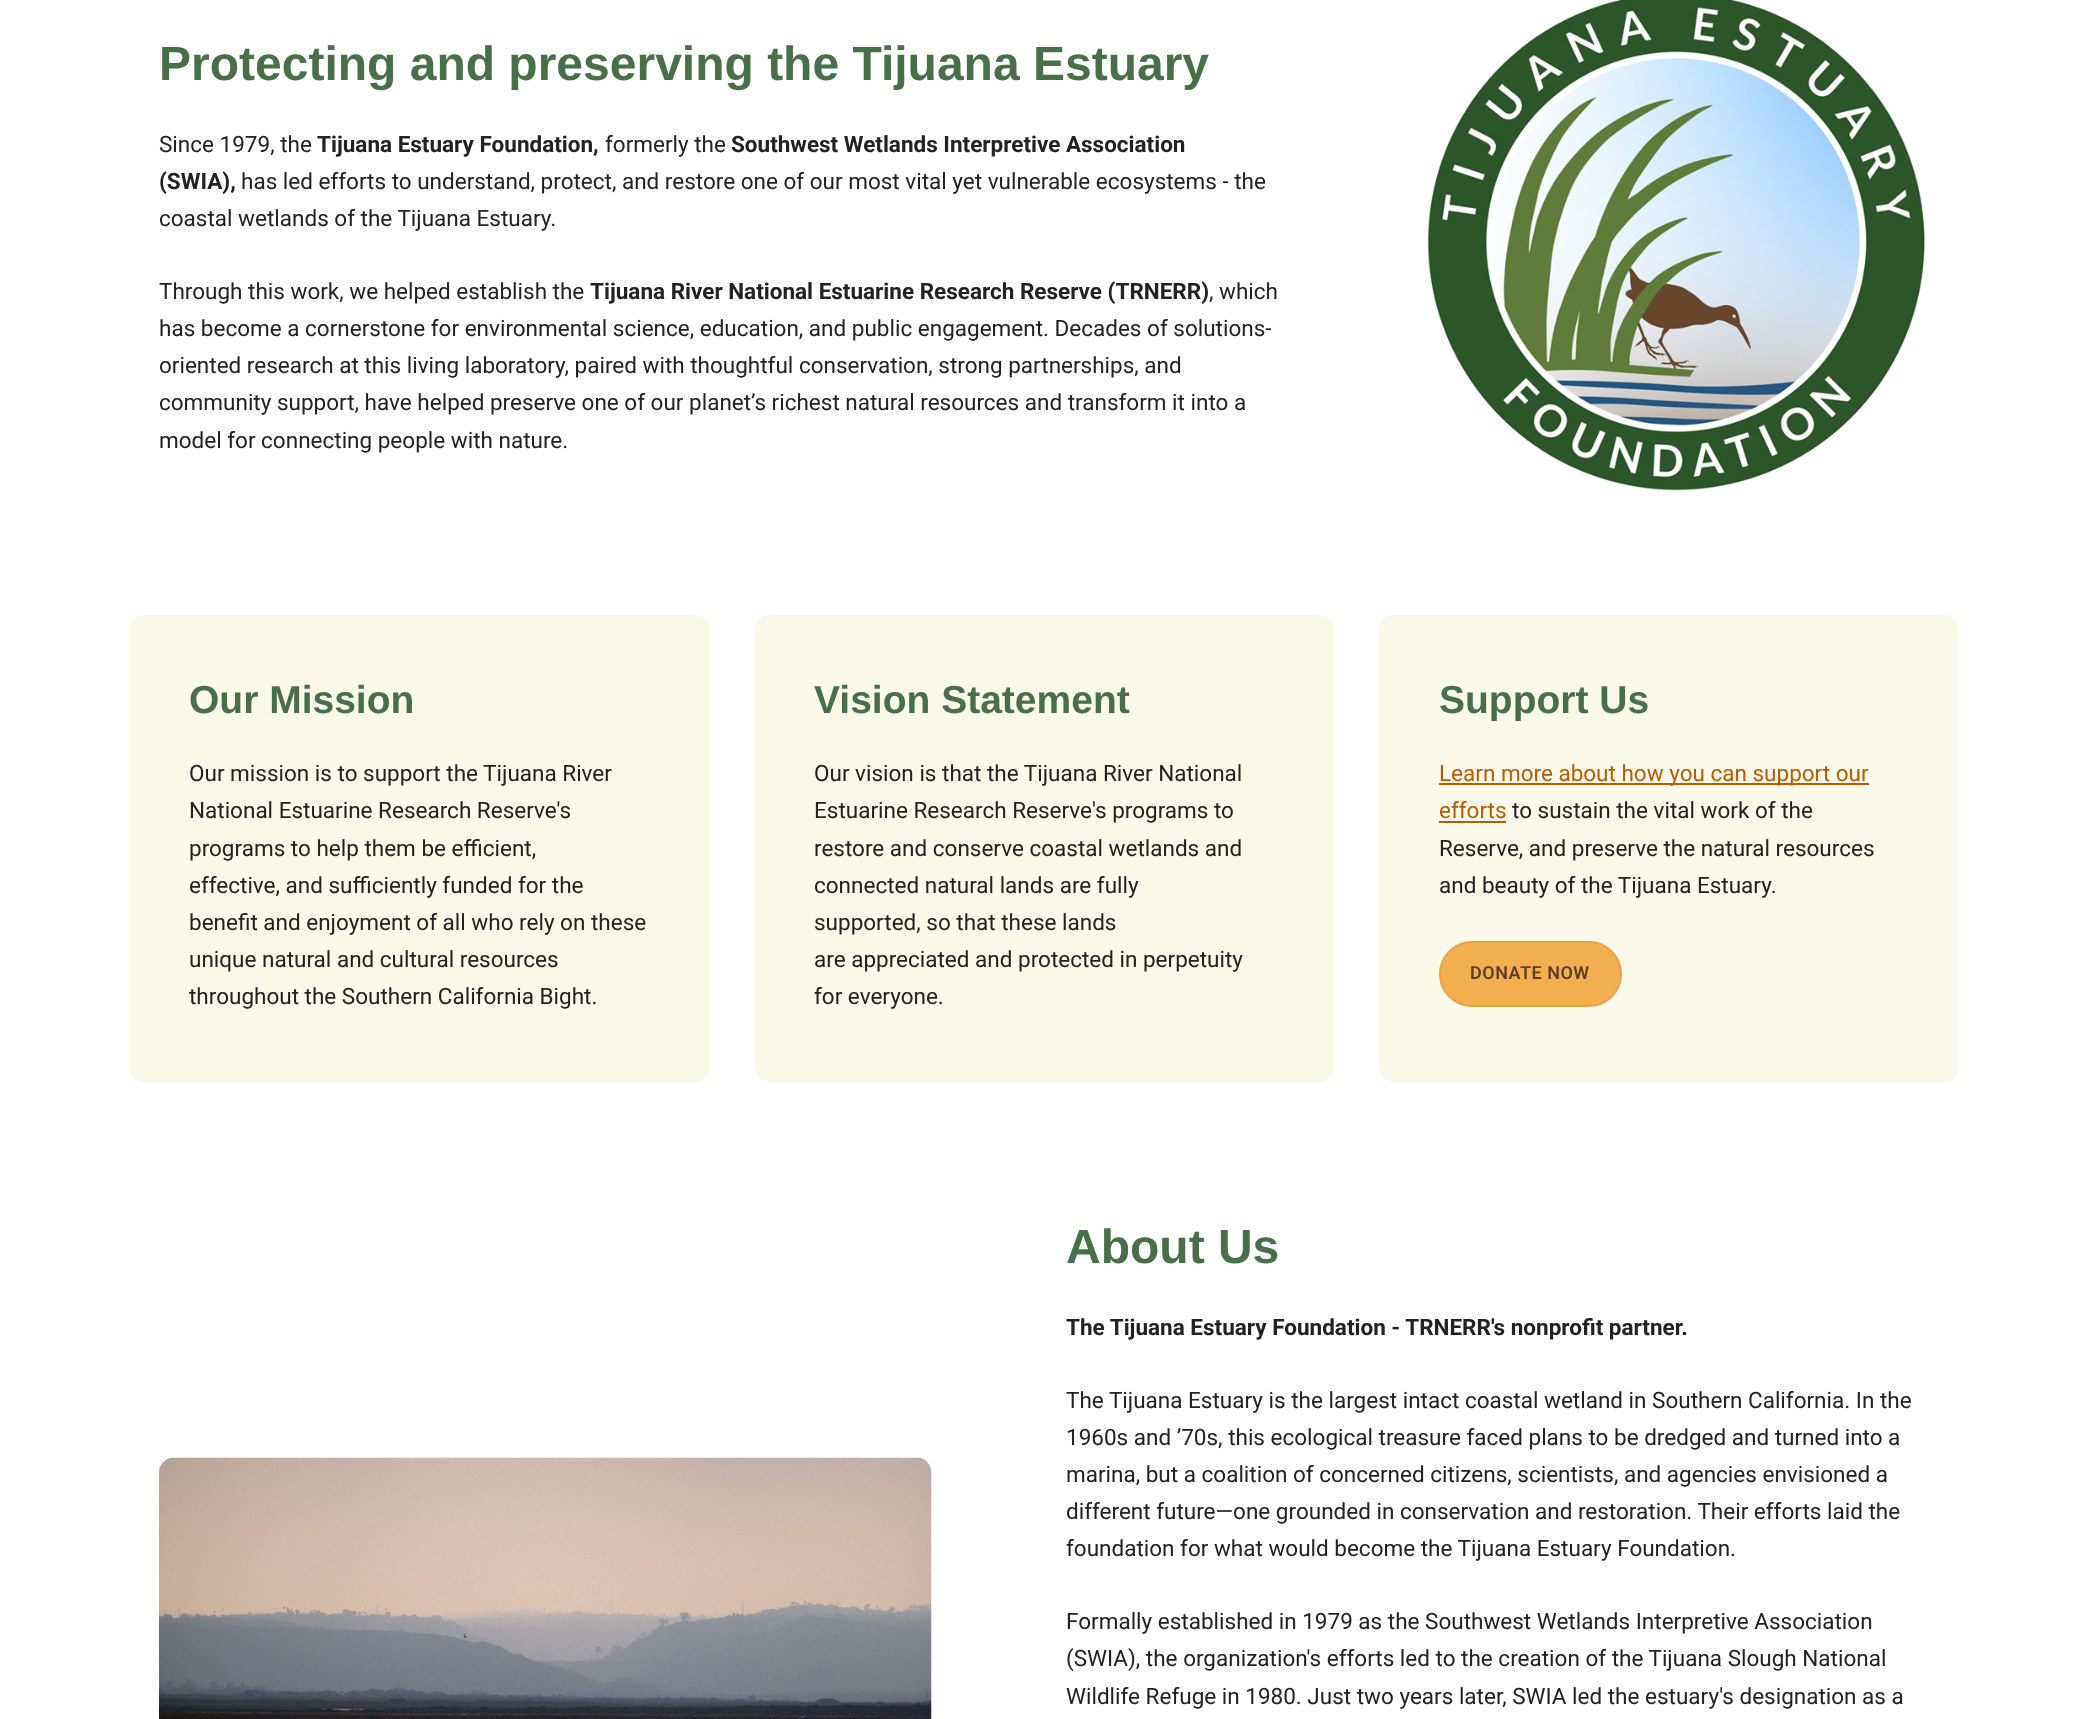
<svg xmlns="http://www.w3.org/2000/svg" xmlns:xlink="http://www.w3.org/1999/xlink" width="2087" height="1719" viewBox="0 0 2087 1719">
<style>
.cls-1{font:bold 48px Liberation Sans;fill:#487048}
.cls-2{font:22.5px Roboto;fill:#222222}
.cls-3{font:bold 22.5px Roboto;fill:#222222}
.cls-4{font:bold 39px Liberation Sans;fill:#487048}
.cls-5{font:22.5px Roboto;fill:#ba5b02}
.cls-6{font:600 18px Roboto;letter-spacing:0.5px;fill:#5f3f2a}
</style>
<rect width="100%" height="100%" fill="#ffffff"/>
<image xlink:href="image0.png" x="1427" y="0" width="498" height="491"/>
<rect fill="#f9f8e9" x="129" y="615" width="581" height="467" rx="15"/>
<rect fill="#f9f8e9" x="755" y="615" width="579" height="467" rx="15"/>
<rect fill="#f9f8e9" x="1379" y="615" width="580" height="467" rx="15"/>
<rect fill="#ba5b02" x="1439" y="783" width="430" height="2"/>
<rect fill="#ba5b02" x="1439" y="821" width="67" height="2"/>
<rect fill="#f3ae4f" stroke="#e7a243" stroke-width="2" x="1440" y="942" width="181" height="64" rx="32"/>
<image xlink:href="image1.png" x="159" y="1457" width="773" height="262"/>
<text class="cls-1" x="159" y="80">Protecting and preserving the Tijuana Estuary</text>
<text class="cls-2" x="159" y="152">Since 1979, the</text>
<text class="cls-3" x="317" y="152">Tijuana Estuary Foundation,</text>
<text class="cls-2" x="605" y="152">formerly the</text>
<text class="cls-3" x="731" y="152">Southwest Wetlands Interpretive Association</text>
<text class="cls-3" x="159" y="189">(SWIA),</text>
<text class="cls-2" x="241" y="189">has led efforts to understand, protect, and restore one of our most vital yet vulnerable ecosystems - the</text>
<text class="cls-2" x="159" y="226">coastal wetlands of the Tijuana Estuary.</text>
<text class="cls-2" x="159" y="299">Through this work, we helped establish the</text>
<text class="cls-3" x="590" y="299">Tijuana River National Estuarine Research Reserve (TRNERR)</text>
<text class="cls-2" x="1209" y="299">, which</text>
<text class="cls-2"><tspan x="159" y="336">has become a cornerstone for environmental science, education, and public engagement. Decades of solutions-</tspan><tspan x="159" y="373">oriented research at this living laboratory, paired with thoughtful conservation, strong partnerships, and</tspan><tspan x="159" y="410">community support, have helped preserve one of our planet’s richest natural resources and transform it into a</tspan><tspan x="159" y="448">model for connecting people with nature.</tspan></text>
<text class="cls-4" x="189" y="713">Our Mission</text>
<text class="cls-2"><tspan x="189" y="781">Our mission is to support the Tijuana River</tspan><tspan x="189" y="818">National Estuarine Research Reserve's</tspan><tspan x="189" y="856">programs to help them be efficient,</tspan><tspan x="189" y="893">effective, and sufficiently funded for the</tspan><tspan x="189" y="930">benefit and enjoyment of all who rely on these</tspan><tspan x="189" y="967">unique natural and cultural resources</tspan><tspan x="189" y="1004">throughout the Southern California Bight.</tspan></text>
<text class="cls-4" x="814" y="713">Vision Statement</text>
<text class="cls-2"><tspan x="814" y="781">Our vision is that the Tijuana River National</tspan><tspan x="814" y="818">Estuarine Research Reserve's programs to</tspan><tspan x="814" y="856">restore and conserve coastal wetlands and</tspan><tspan x="814" y="893">connected natural lands are fully</tspan><tspan x="814" y="930">supported, so that these lands</tspan><tspan x="814" y="967">are appreciated and protected in perpetuity</tspan><tspan x="814" y="1004">for everyone.</tspan></text>
<text class="cls-4" x="1439" y="713">Support Us</text>
<text class="cls-5"><tspan x="1439" y="781">Learn more about how you can support our</tspan><tspan x="1439" y="818">efforts</tspan></text>
<text class="cls-2" x="1512" y="818">to sustain the vital work of the</text>
<text class="cls-2"><tspan x="1439" y="856">Reserve, and preserve the natural resources</tspan><tspan x="1439" y="893">and beauty of the Tijuana Estuary.</tspan></text>
<text class="cls-6" x="1470" y="979">DONATE NOW</text>
<text class="cls-1" x="1066" y="1263">About Us</text>
<text class="cls-3" x="1066" y="1335">The Tijuana Estuary Foundation - TRNERR's nonprofit partner.</text>
<text class="cls-2"><tspan x="1066" y="1408">The Tijuana Estuary is the largest intact coastal wetland in Southern California. In the</tspan><tspan x="1066" y="1445">1960s and ’70s, this ecological treasure faced plans to be dredged and turned into a</tspan><tspan x="1066" y="1482">marina, but a coalition of concerned citizens, scientists, and agencies envisioned a</tspan><tspan x="1066" y="1519">different future—one grounded in conservation and restoration. Their efforts laid the</tspan><tspan x="1066" y="1556">foundation for what would become the Tijuana Estuary Foundation.</tspan></text>
<text class="cls-2"><tspan x="1066" y="1629">Formally established in 1979 as the Southwest Wetlands Interpretive Association</tspan><tspan x="1066" y="1666">(SWIA), the organization's efforts led to the creation of the Tijuana Slough National</tspan><tspan x="1066" y="1704">Wildlife Refuge in 1980. Just two years later, SWIA led the estuary's designation as a</tspan></text>
</svg>
